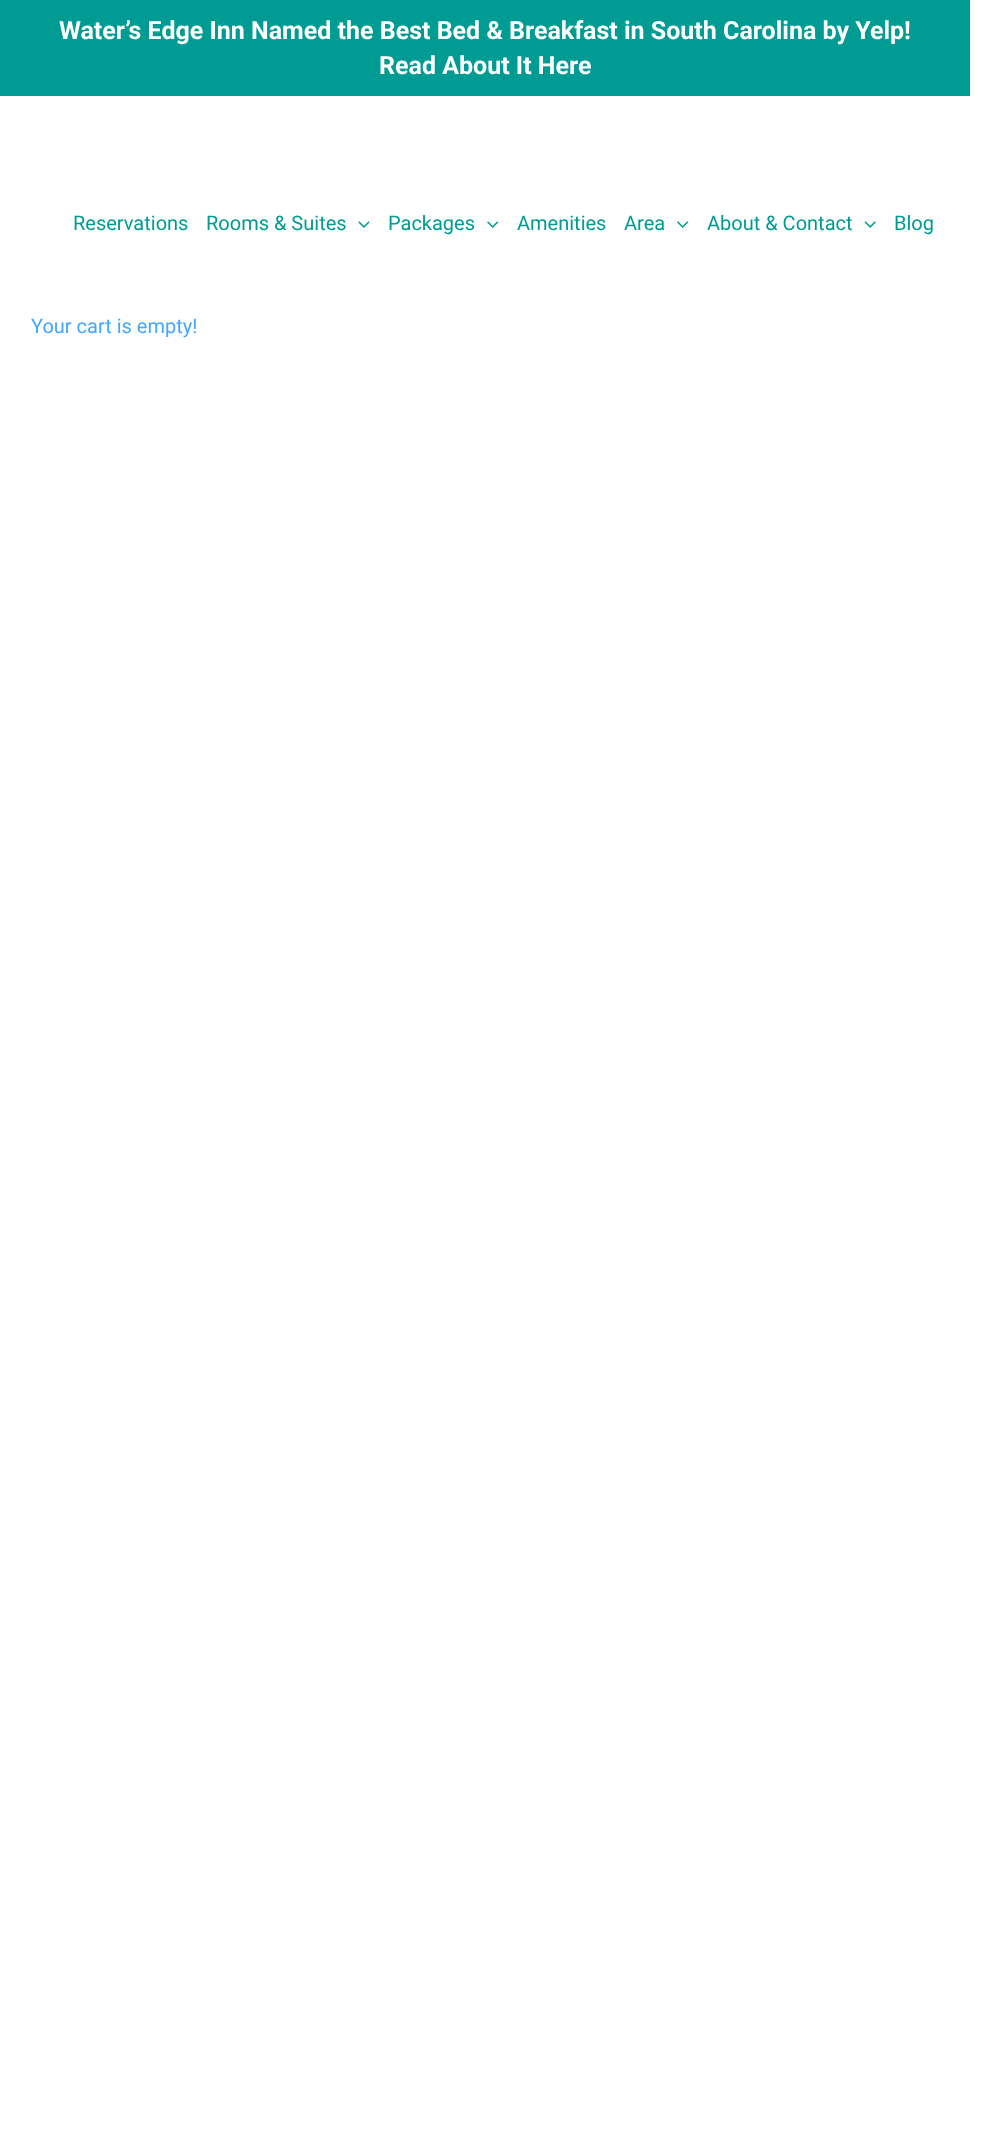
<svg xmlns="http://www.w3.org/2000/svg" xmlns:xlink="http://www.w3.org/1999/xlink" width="1007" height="2129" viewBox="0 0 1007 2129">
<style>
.cls-1{font:bold 25px Roboto;fill:#ffffff}
.cls-2{font:20px Roboto;fill:#009b93}
.cls-3{font:20px Roboto;fill:#43a7ff}
</style>
<rect width="100%" height="100%" fill="#ffffff"/>
<rect fill="#009b93" x="0" y="0" width="970" height="96"/>
<image xlink:href="image0.png" x="358" y="221" width="12" height="7"/>
<image xlink:href="image1.png" x="487" y="221" width="12" height="7"/>
<image xlink:href="image1.png" x="677" y="221" width="12" height="7"/>
<image xlink:href="image2.png" x="864" y="221" width="12" height="7"/>
<text class="cls-1" x="59" y="39">Water’s Edge Inn Named the Best Bed &amp; Breakfast in South Carolina by Yelp!</text>
<text class="cls-1" x="379" y="74">Read About It Here</text>
<text class="cls-2" x="73" y="230">Reservations</text>
<text class="cls-2" x="206" y="230">Rooms &amp; Suites</text>
<text class="cls-2" x="388" y="230">Packages</text>
<text class="cls-2" x="517" y="230">Amenities</text>
<text class="cls-2" x="624" y="230">Area</text>
<text class="cls-2" x="707" y="230">About &amp; Contact</text>
<text class="cls-2" x="894" y="230">Blog</text>
<text class="cls-3" x="31" y="333">Your cart is empty!</text>
</svg>
